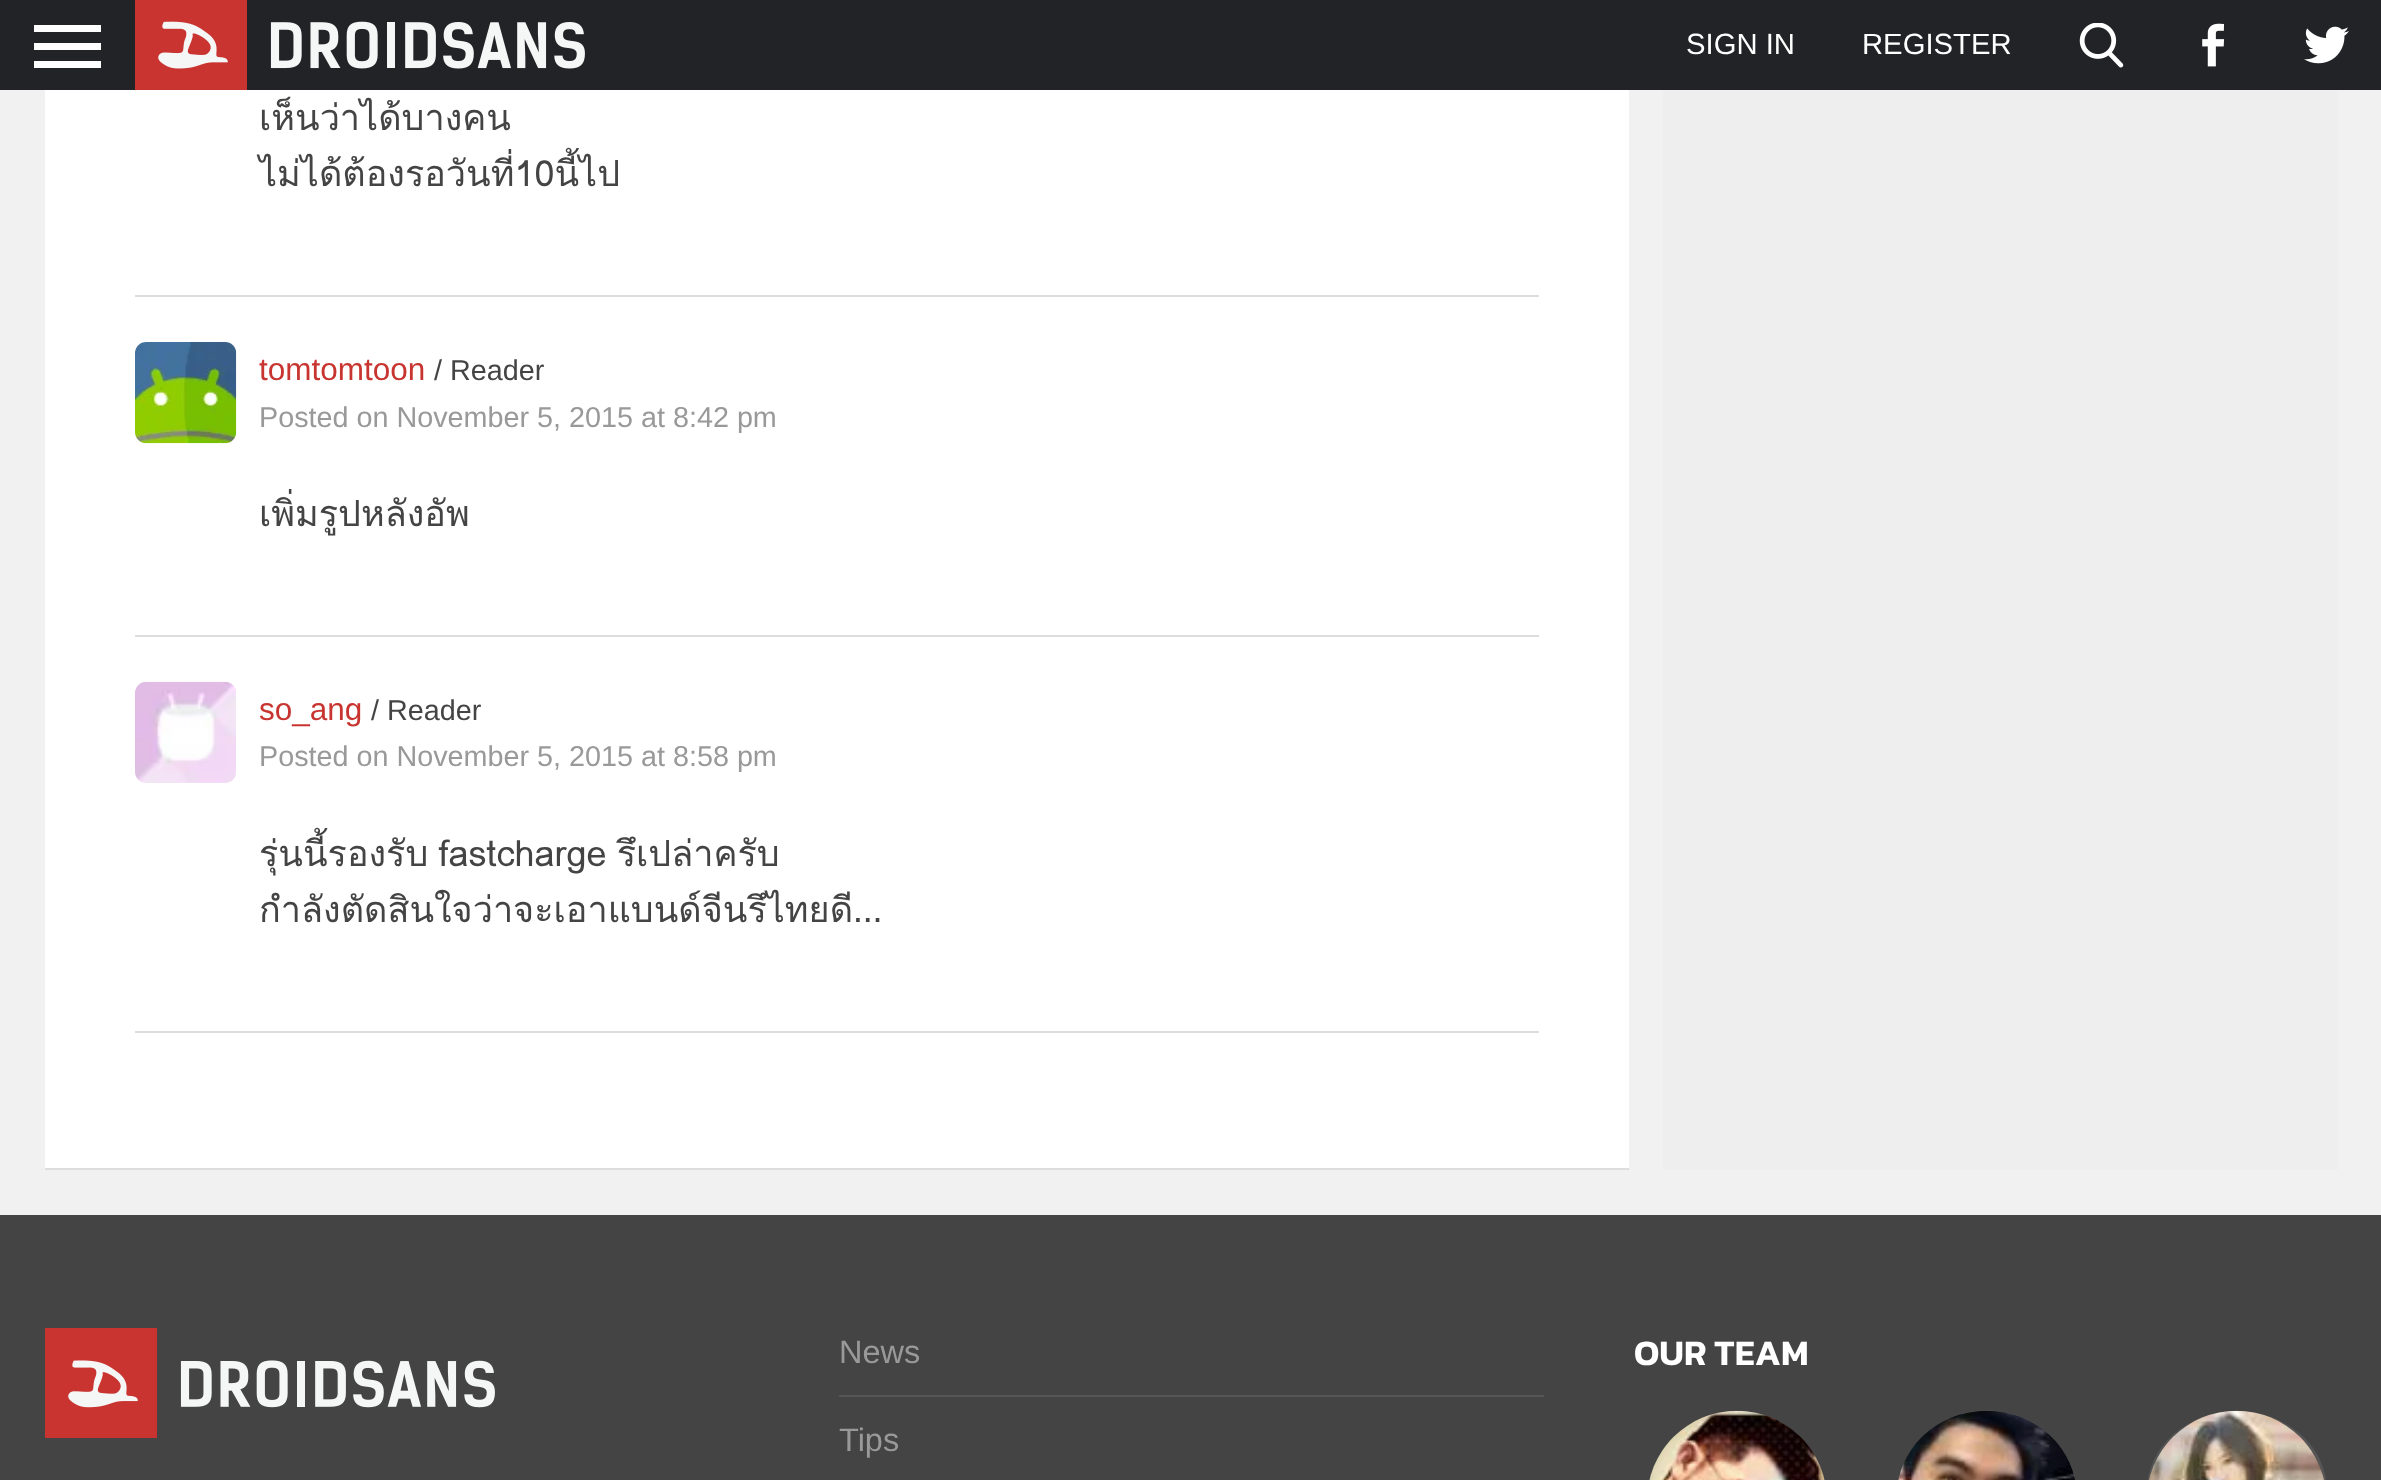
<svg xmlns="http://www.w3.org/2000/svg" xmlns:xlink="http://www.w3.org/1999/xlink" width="2381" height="1480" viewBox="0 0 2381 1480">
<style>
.cls-1{font:29.25px Liberation Sans;fill:#ffffff}
.cls-2{font:36px Loma;fill:#444444}
.cls-3{font:31.5px Liberation Sans;fill:#c83430}
.cls-4{font:28.75px Liberation Sans;fill:#444444}
.cls-5{font:28.75px Liberation Sans;fill:#999999}
.cls-6{font:32.5px Liberation Sans;fill:#999999}
.cls-7{font:600 36px Kanit;fill:#ffffff}
</style>
<rect width="100%" height="100%" fill="#f1f1f1"/>
<rect fill="#212327" x="0" y="0" width="2381" height="90"/>
<rect fill="#ffffff" x="34" y="25" width="67" height="7"/>
<rect fill="#ffffff" x="34" y="43" width="67" height="7"/>
<rect fill="#ffffff" x="34" y="61" width="67" height="7"/>
<image xlink:href="image0.png" x="135" y="0" width="450" height="90"/>
<image xlink:href="image1.png" x="2079" y="23" width="45" height="45"/>
<image xlink:href="image2.png" x="2202" y="23" width="23" height="44"/>
<image xlink:href="image3.png" x="2304" y="26" width="45" height="38"/>
<rect fill="#ffffff" x="45" y="90" width="1584" height="1078"/>
<rect fill="#dddddd" x="45" y="1168" width="1584" height="2"/>
<rect fill="#dddddd" x="135" y="295" width="1404" height="2"/>
<rect fill="#dddddd" x="135" y="635" width="1404" height="2"/>
<image xlink:href="image4.png" x="135" y="342" width="102" height="102"/>
<rect fill="#dddddd" x="135" y="1031" width="1404" height="2"/>
<image xlink:href="image5.png" x="135" y="681" width="101" height="102"/>
<rect fill="#eeeeee" x="1663" y="90" width="675" height="1080"/>
<rect fill="#444444" x="0" y="1215" width="2381" height="265"/>
<image xlink:href="image6.png" x="45" y="1328" width="450" height="110"/>
<rect fill="#555555" x="839" y="1395" width="705" height="2"/>
<image xlink:href="image7.png" x="1649" y="1410" width="176" height="70"/>
<ellipse fill="#555555" cx="1987" cy="1496" rx="90" ry="85.5"/>
<image xlink:href="image8.png" x="1898" y="1410" width="177" height="70"/>
<rect fill="#555555" x="2147" y="1411" width="180" height="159" rx="90"/>
<image xlink:href="image9.png" x="2149" y="1410" width="175" height="70"/>
<text class="cls-1" x="1686" y="54">SIGN IN</text>
<text class="cls-1" x="1862" y="54">REGISTER</text>
<text class="cls-2"><tspan x="259" y="130">เห็นว่าได้บางคน</tspan><tspan x="259" y="186">ไม่ได้ต้องรอวันที่10นี้ไป</tspan></text>
<text class="cls-3" x="259" y="380">tomtomtoon</text>
<text class="cls-4" x="434" y="380">/ Reader</text>
<text class="cls-5" x="259" y="427">Posted on November 5, 2015 at 8:42 pm</text>
<text class="cls-2" x="259" y="526">เพิ่มรูปหลังอัพ</text>
<text class="cls-3" x="259" y="720">so_ang</text>
<text class="cls-4" x="371" y="720">/ Reader</text>
<text class="cls-5" x="259" y="766">Posted on November 5, 2015 at 8:58 pm</text>
<text class="cls-2"><tspan x="259" y="866" word-spacing="-2">รุ่นนี้รองรับ fastcharge รึเปล่าครับ</tspan><tspan x="259" y="922">กำลังตัดสินใจว่าจะเอาแบนด์จีนรึไทยดี…</tspan></text>
<text class="cls-6" x="839" y="1363">News</text>
<text class="cls-6" x="839" y="1451">Tips</text>
<text class="cls-7" x="1634" y="1365">OUR TEAM</text>
</svg>
